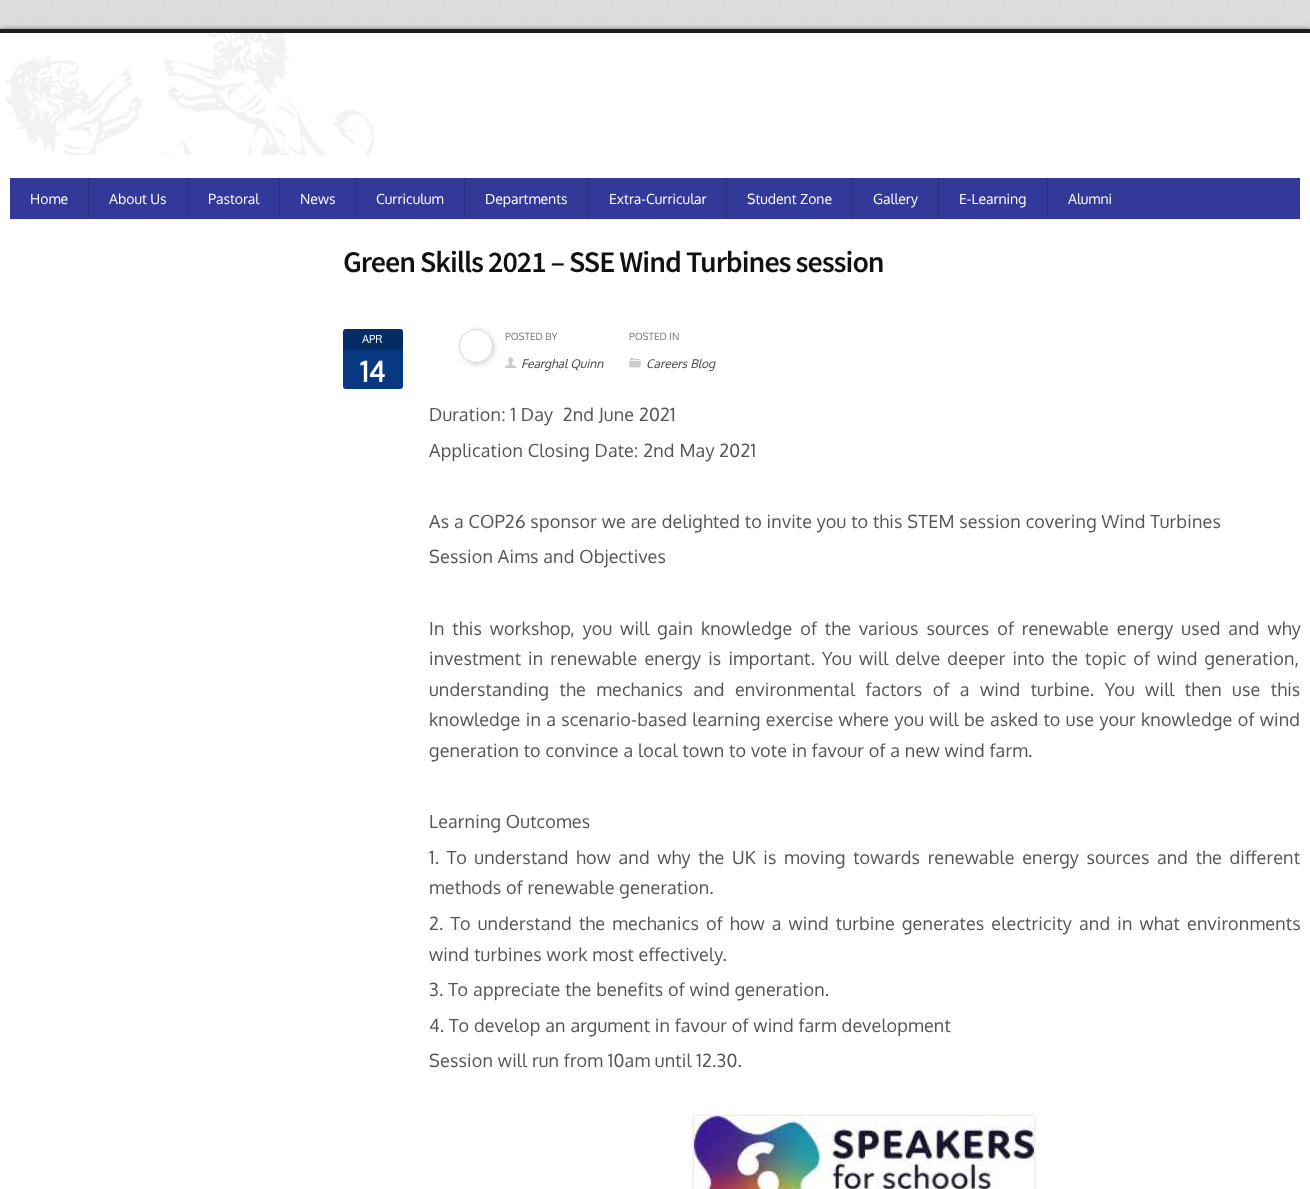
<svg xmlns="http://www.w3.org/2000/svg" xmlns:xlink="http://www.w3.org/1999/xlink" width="1310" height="1189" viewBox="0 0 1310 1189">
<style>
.cls-1{font:14px Oxygen;fill:#ffffff}
.cls-2{font:600 30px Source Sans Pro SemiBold;letter-spacing:-1px;fill:#111111}
.cls-3{font:11px Oxygen;fill:#ffffff}
.cls-4{font:bold 28px Oxygen;fill:#ffffff}
.cls-5{font:10px Oxygen;fill:#777777}
.cls-6{font:italic 12px Oxygen;fill:#444444}
.cls-7{font:18px Oxygen;letter-spacing:0.2px;fill:#555555}
</style>
<defs>
<clipPath id="clip1"><path d="M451 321H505V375H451ZM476 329C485.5 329 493 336.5 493 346C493 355.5 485.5 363 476 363C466.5 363 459 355.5 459 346C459 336.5 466.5 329 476 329Z" clip-rule="evenodd"/></clipPath>
</defs>
<rect width="100%" height="100%" fill="#ffffff"/>
<image xlink:href="image0.png" x="0" y="0" width="1310" height="29"/>
<rect fill="#000000" fill-opacity="0.5" filter="blur(2.5px)" x="0" y="29" width="1310" height="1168"/>
<rect fill="#ffffff" x="0" y="34" width="1310" height="1155"/>
<rect fill="#1f1f1f" x="0" y="29" width="1310" height="4"/>
<rect fill="#fcfcfc" x="0" y="33" width="1310" height="1"/>
<image xlink:href="image1.png" x="6" y="33" width="368" height="122"/>
<rect fill="#333999" x="10" y="178" width="1290" height="41"/>
<rect fill="#292e7a" x="88" y="178" width="1" height="41"/>
<rect fill="#292e7a" x="187" y="178" width="1" height="41"/>
<rect fill="#292e7a" x="279" y="178" width="1" height="41"/>
<rect fill="#292e7a" x="355" y="178" width="1" height="41"/>
<rect fill="#292e7a" x="464" y="178" width="1" height="41"/>
<rect fill="#292e7a" x="588" y="178" width="1" height="41"/>
<rect fill="#292e7a" x="726" y="178" width="1" height="41"/>
<rect fill="#292e7a" x="852" y="178" width="1" height="41"/>
<rect fill="#292e7a" x="938" y="178" width="1" height="41"/>
<rect fill="#292e7a" x="1047" y="178" width="1" height="41"/>
<rect fill="#08387f" x="343" y="329" width="60" height="60" rx="3"/>
<path fill="#000000" fill-opacity="0.2" d="M346 329H400C401.5 329 403 330.5 403 332V350H343V332C343 330.5 344.5 329 346 329Z"/>
<g clip-path="url(#clip1)">
<rect fill="#000000" fill-opacity="0.25" filter="blur(3.5px)" x="463" y="333" width="30" height="30" rx="15"/>
</g>
<circle fill="none" stroke="#d6d6d6" cx="476" cy="346" r="16.5"/>
<image xlink:href="image2.png" x="505" y="357" width="12" height="11"/>
<image xlink:href="image3.png" x="629" y="357" width="12" height="11"/>
<rect fill="#000000" fill-opacity="0.2" filter="blur(1.5px)" x="694" y="1116" width="340" height="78"/>
<image xlink:href="image4.png" x="694" y="1116" width="340" height="73"/>
<text class="cls-1" x="30" y="204">Home</text>
<text class="cls-1" x="109" y="204">About Us</text>
<text class="cls-1" x="208" y="204">Pastoral</text>
<text class="cls-1" x="300" y="204">News</text>
<text class="cls-1" x="376" y="204">Curriculum</text>
<text class="cls-1" x="485" y="204">Departments</text>
<text class="cls-1" x="609" y="204">Extra-Curricular</text>
<text class="cls-1" x="747" y="204">Student Zone</text>
<text class="cls-1" x="873" y="204">Gallery</text>
<text class="cls-1" x="959" y="204">E-Learning</text>
<text class="cls-1" x="1068" y="204">Alumni</text>
<text class="cls-2" x="343" y="272">Green Skills 2021 – SSE Wind Turbines session</text>
<text class="cls-3" x="362" y="343">APR</text>
<text class="cls-4" x="360" y="382">14</text>
<text class="cls-5" x="505" y="340">POSTED BY</text>
<text class="cls-6" x="521" y="368">Fearghal Quinn</text>
<text class="cls-5" x="629" y="340">POSTED IN</text>
<text class="cls-6" x="646" y="368">Careers Blog</text>
<text class="cls-7" xml:space="preserve" x="429" y="421">Duration: 1 Day  2nd June 2021</text>
<text class="cls-7" x="429" y="457">Application Closing Date: 2nd May 2021</text>
<text class="cls-7"><tspan x="429" y="528">As a COP26 sponsor we are delighted to invite you to this STEM session covering Wind Turbines</tspan><tspan x="429" y="563">Session Aims and Objectives</tspan></text>
<text class="cls-7"><tspan x="429" y="635" word-spacing="3.1">In this workshop, you will gain knowledge of the various sources of renewable energy used and why</tspan><tspan x="429" y="665" word-spacing="2.25">investment in renewable energy is important. You will delve deeper into the topic of wind generation,</tspan><tspan x="429" y="696" word-spacing="5.6">understanding the mechanics and environmental factors of a wind turbine. You will then use this</tspan><tspan x="429" y="726" word-spacing="0.5">knowledge in a scenario-based learning exercise where you will be asked to use your knowledge of wind</tspan><tspan x="429" y="757">generation to convince a local town to vote in favour of a new wind farm.</tspan></text>
<text class="cls-7" x="429" y="828">Learning Outcomes</text>
<text class="cls-7"><tspan x="429" y="864" word-spacing="2.75">1. To understand how and why the UK is moving towards renewable energy sources and the different</tspan><tspan x="429" y="894">methods of renewable generation.</tspan></text>
<text class="cls-7"><tspan x="429" y="930" word-spacing="2.25">2. To understand the mechanics of how a wind turbine generates electricity and in what environments</tspan><tspan x="429" y="961">wind turbines work most effectively.</tspan><tspan x="429" y="996">3. To appreciate the benefits of wind generation.</tspan></text>
<text class="cls-7"><tspan x="429" y="1032">4. To develop an argument in favour of wind farm development</tspan><tspan x="429" y="1067">Session will run from 10am until 12.30.</tspan></text>
</svg>
